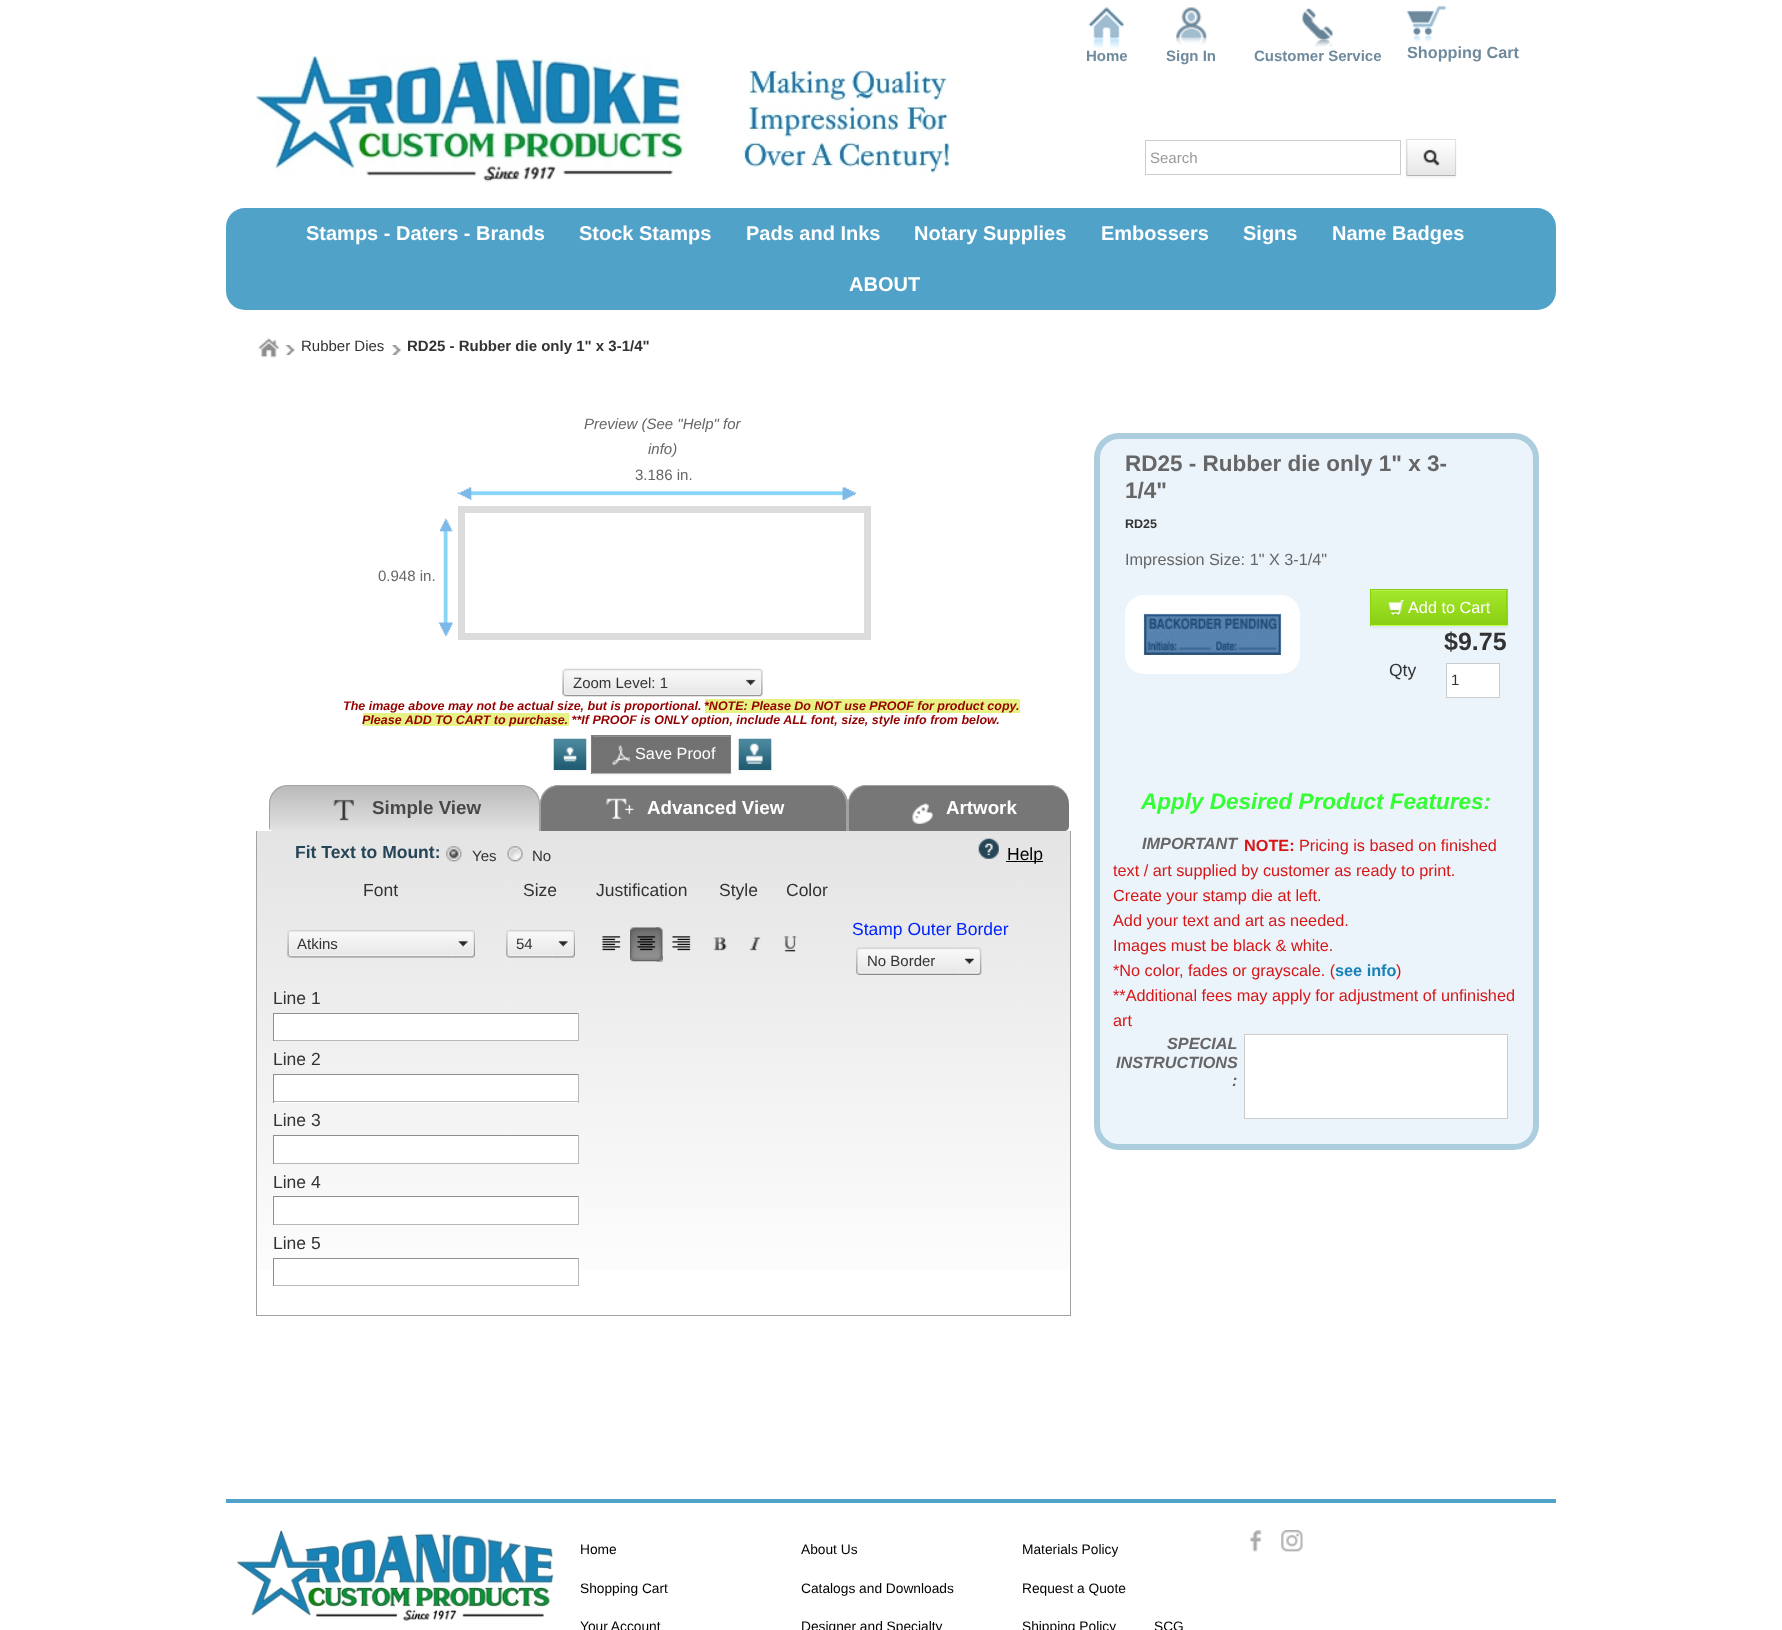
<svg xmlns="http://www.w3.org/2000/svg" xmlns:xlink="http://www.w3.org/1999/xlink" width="1782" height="1630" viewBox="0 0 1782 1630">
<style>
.cls-1{font:bold 15px Liberation Sans;fill:#6f8a9d}
.cls-2{font:bold 16.25px Liberation Sans;fill:#6f8a9d}
.cls-3{font:15px Liberation Sans;fill:#999999}
.cls-4{font:15px Liberation Sans;fill:#333333}
.cls-5{font:bold 15px Liberation Sans;fill:#333333}
.cls-6{font:italic 15px Liberation Sans;fill:#666666}
.cls-7{font:15px Liberation Sans;fill:#666666}
.cls-8{font:italic bold 12.5px Liberation Sans;fill:#940000}
.cls-9{font:16.25px Liberation Sans;fill:#ffffff}
.cls-10{font:bold 18.75px Liberation Sans;fill:#484848}
.cls-11{font:bold 18.75px Liberation Sans;fill:#ffffff}
.cls-12{font:bold 17.5px Liberation Sans;fill:#264556}
.cls-13{font:17.5px Liberation Sans;fill:#000000}
.cls-14{font:17.5px Liberation Sans;fill:#333333}
.cls-15{font:17.5px Liberation Sans;fill:#0023ff}
.cls-16{font:bold 22.5px Liberation Sans;fill:#666666}
.cls-17{font:bold 12.5px Liberation Sans;fill:#333333}
.cls-18{font:16.25px Liberation Sans;fill:#666666}
.cls-19{font:bold 25px Liberation Sans;fill:#333333}
.cls-20{font:italic bold 22.5px Liberation Sans;fill:#33ff33}
.cls-21{font:italic bold 16.25px Liberation Sans;fill:#666666}
.cls-22{font:bold 16.25px Liberation Sans;fill:#d71616}
.cls-23{font:16.25px Liberation Sans;fill:#d71616}
.cls-24{font:bold 16.25px Liberation Sans;fill:#1782b5}
.cls-25{font:13.75px Liberation Sans;fill:#000000}
.cls-26{font:bold 20px Liberation Sans;fill:#ffffff}
</style>
<defs>
<linearGradient id="g1" gradientUnits="userSpaceOnUse" x1="1431" y1="140" x2="1431" y2="175"><stop offset="0" stop-color="#ffffff"/><stop offset="1" stop-color="#e6e6e6"/></linearGradient>
<clipPath id="clip1"><rect x="269" y="785" width="800" height="46" rx="4"/></clipPath>
<clipPath id="clip2"><path d="M288 785H521C531.5 785 540 793.5 540 804V831H269V804C269 793.5 277.5 785 288 785Z"/></clipPath>
<linearGradient id="g2" gradientUnits="userSpaceOnUse" x1="404" y1="786" x2="404" y2="831"><stop offset="0" stop-color="#bababa"/><stop offset="1" stop-color="#e2e2e2"/></linearGradient>
<linearGradient id="g3" gradientUnits="userSpaceOnUse" x1="664" y1="831" x2="664" y2="1315"><stop offset="0" stop-color="#e4e4e4"/><stop offset="1" stop-color="#ffffff"/></linearGradient>
<linearGradient id="g4" gradientUnits="userSpaceOnUse" x1="1439" y1="590" x2="1439" y2="625"><stop offset="0" stop-color="#a3e82b"/><stop offset="1" stop-color="#8acf12"/></linearGradient>
</defs>
<rect width="100%" height="100%" fill="#ffffff"/>
<image xlink:href="image0.png" x="255" y="56" width="695" height="126"/>
<image xlink:href="image1.png" x="1088" y="7" width="36" height="41"/>
<image xlink:href="image2.png" x="1176" y="7" width="31" height="38"/>
<image xlink:href="image3.png" x="1302" y="8" width="31" height="39"/>
<image xlink:href="image4.png" x="1406" y="5" width="41" height="37"/>
<rect fill="none" stroke="#cccccc" x="1145.5" y="140.5" width="255" height="34"/>
<rect fill="#000000" fill-opacity="0.05" filter="blur(1px)" x="1406" y="140" width="50" height="38"/>
<rect fill="#f5f5f5" x="1406" y="139" width="50" height="37"/>
<rect fill="url(#g1)" x="1406" y="140" width="50" height="35"/>
<path fill="#dddddd" d="M1406 139H1456L1455 140H1408Z"/>
<path fill="#000000" fill-opacity="0.1" d="M1456 139V176L1455 175V140Z"/>
<path fill="#b3b3b3" d="M1456 176H1406L1408 175H1455Z"/>
<path fill="#000000" fill-opacity="0.1" d="M1406 176V139L1407.5 140V175Z"/>
<image xlink:href="image5.png" x="1423" y="149" width="17" height="17"/>
<image xlink:href="image6.png" x="258" y="338" width="21" height="20"/>
<image xlink:href="image7.png" x="285" y="345" width="10" height="10"/>
<image xlink:href="image8.png" x="391" y="345" width="11" height="10"/>
<image xlink:href="image9.png" x="457" y="487" width="400" height="13"/>
<image xlink:href="image10.png" x="438" y="518" width="15" height="119"/>
<rect fill="#dcdcdc" x="458" y="506" width="413" height="134"/>
<rect fill="#ffffff" x="465" y="513" width="399" height="120"/>
<image xlink:href="image11.png" x="562" y="668" width="178" height="29"/>
<image xlink:href="image12.png" x="740" y="668" width="23" height="29"/>
<rect fill="#e7f184" x="705" y="699" width="315" height="14"/>
<rect fill="#e7f184" x="363" y="713" width="206" height="13"/>
<rect fill="#000000" fill-opacity="0.05" filter="blur(1px)" x="554" y="740" width="32" height="31"/>
<image xlink:href="image13.png" x="553" y="738" width="34" height="32"/>
<rect fill="#000000" fill-opacity="0.05" filter="blur(1px)" x="591" y="736" width="140" height="39"/>
<rect fill="#727272" x="592" y="736" width="138" height="37"/>
<rect fill="#8e8e8e" x="593" y="736" width="137" height="1"/>
<rect fill="#818181" x="591" y="735" width="140" height="1"/>
<rect fill="#818181" x="730" y="735" width="1" height="39"/>
<rect fill="#b4b4b4" x="591" y="773" width="140" height="1"/>
<rect fill="#818181" x="591" y="735" width="1" height="39"/>
<image xlink:href="image14.png" x="612" y="745" width="18" height="21"/>
<rect fill="#000000" fill-opacity="0.05" filter="blur(1px)" x="739" y="740" width="32" height="31"/>
<image xlink:href="image15.png" x="738" y="738" width="34" height="32"/>
<g clip-path="url(#clip1)">
<g clip-path="url(#clip2)">
<path fill="url(#g2)" d="M269 786H540V831H273C271 831 269 829 269 827Z"/>
</g>
</g>
<path fill="#a2a2a2" d="M288 785C277 785 269 793 269 804V827C269 828 269 829 270 830V804C270 794 278 786 288 786H521C531 786 539 794 539 804V831H540V804C540 793 532 785 521 785Z"/>
<image xlink:href="image16.png" x="333" y="799" width="21" height="22"/>
<path fill="#777777" d="M559 785H829C839.5 785 848 793.5 848 804V831H540V804C540 793.5 548.5 785 559 785Z"/>
<path fill="#a2a2a2" fill-rule="evenodd" d="M559 785H829C839 785 848 793 848 804V831H540V804C540 793 548 785 559 785ZM559 786H829C838 786 846 794 846 804V831H541V804C541 794 549 786 559 786Z"/>
<image xlink:href="image17.png" x="606" y="798" width="28" height="21"/>
<g clip-path="url(#clip1)">
<path fill="#777777" d="M867 785H1050C1060.5 785 1069 793.5 1069 804V827C1069 829 1067 831 1065 831H848V804C848 793.5 856.5 785 867 785Z"/>
</g>
<path fill="#a2a2a2" fill-rule="evenodd" d="M866 785H1050C1060 785 1069 793 1069 804V831H848V804C848 793 856 785 866 785ZM866 786H1050C1060 786 1069 794 1069 804V831H849V804C849 794 857 786 866 786Z"/>
<image xlink:href="image18.png" x="912" y="803" width="21" height="21"/>
<rect fill="url(#g3)" x="257" y="831" width="813" height="439"/>
<rect fill="#a2a2a2" x="1070" y="831" width="1" height="485"/>
<rect fill="#a2a2a2" x="256" y="1315" width="815" height="1"/>
<rect fill="#a2a2a2" x="256" y="831" width="1" height="485"/>
<image xlink:href="image19.png" x="446" y="846" width="16" height="16"/>
<image xlink:href="image20.png" x="507" y="846" width="16" height="16"/>
<image xlink:href="image21.png" x="978" y="838" width="21" height="21"/>
<rect fill="#000000" x="1006" y="861" width="37" height="1"/>
<image xlink:href="image22.png" x="287" y="930" width="166" height="28"/>
<image xlink:href="image23.png" x="452" y="930" width="23" height="28"/>
<image xlink:href="image24.png" x="506" y="930" width="47" height="28"/>
<image xlink:href="image25.png" x="552" y="930" width="23" height="28"/>
<image xlink:href="image26.png" x="602" y="936" width="19" height="15"/>
<image xlink:href="image27.png" x="630" y="956" width="33" height="6"/>
<image xlink:href="image28.png" x="656" y="927" width="7" height="35"/>
<image xlink:href="image29.png" x="656" y="956" width="7" height="6"/>
<image xlink:href="image30.png" x="630" y="927" width="29" height="31"/>
<image xlink:href="image31.png" x="637" y="936" width="19" height="15"/>
<image xlink:href="image32.png" x="672" y="936" width="19" height="15"/>
<image xlink:href="image33.png" x="713" y="937" width="14" height="14"/>
<image xlink:href="image34.png" x="749" y="937" width="12" height="14"/>
<image xlink:href="image35.png" x="783" y="936" width="14" height="16"/>
<image xlink:href="image36.png" x="856" y="947" width="103" height="28"/>
<image xlink:href="image37.png" x="958" y="947" width="24" height="28"/>
<rect fill="#ffffff" x="274" y="1014" width="304" height="26"/>
<rect fill="#8f8f8f" x="273" y="1013" width="306" height="1"/>
<rect fill="#b8b8b8" x="578" y="1013" width="1" height="28"/>
<rect fill="#b8b8b8" x="273" y="1040" width="306" height="1"/>
<rect fill="#8f8f8f" x="273" y="1013" width="1" height="28"/>
<rect fill="#ffffff" x="274" y="1075" width="304" height="28"/>
<rect fill="#8f8f8f" x="273" y="1074" width="306" height="1"/>
<rect fill="#b8b8b8" x="578" y="1074" width="1" height="29"/>
<rect fill="#b8b8b8" x="273" y="1101" width="306" height="1"/>
<rect fill="#8f8f8f" x="273" y="1074" width="1" height="29"/>
<rect fill="#ffffff" x="274" y="1136" width="304" height="27"/>
<rect fill="#8f8f8f" x="273" y="1135" width="306" height="1"/>
<rect fill="#b8b8b8" x="578" y="1135" width="1" height="29"/>
<rect fill="#b8b8b8" x="273" y="1163" width="306" height="1"/>
<rect fill="#8f8f8f" x="273" y="1135" width="1" height="29"/>
<rect fill="#ffffff" x="274" y="1197" width="304" height="27"/>
<rect fill="#8f8f8f" x="273" y="1196" width="306" height="1"/>
<rect fill="#b8b8b8" x="578" y="1196" width="1" height="29"/>
<rect fill="#b8b8b8" x="273" y="1224" width="306" height="1"/>
<rect fill="#8f8f8f" x="273" y="1196" width="1" height="29"/>
<rect fill="#ffffff" x="274" y="1259" width="304" height="11"/>
<rect fill="#8f8f8f" x="273" y="1258" width="306" height="1"/>
<rect fill="#b8b8b8" x="578" y="1258" width="1" height="28"/>
<rect fill="#b8b8b8" x="273" y="1285" width="306" height="1"/>
<rect fill="#8f8f8f" x="273" y="1258" width="1" height="28"/>
<rect fill="#ebf3fb" stroke="#abcdde" stroke-width="6" x="1097" y="436" width="439" height="711" rx="22"/>
<rect fill="#ffffff" x="1125" y="595" width="175" height="79" rx="19"/>
<image xlink:href="image38.png" x="1143" y="613" width="139" height="42"/>
<rect fill="#000000" fill-opacity="0.05" filter="blur(1px)" x="1370" y="590" width="138" height="38"/>
<rect fill="url(#g4)" x="1371" y="590" width="137" height="35"/>
<rect fill="#b5ed55" x="1371" y="590" width="135" height="1"/>
<rect fill="#8acf12" x="1370" y="589" width="138" height="1"/>
<rect fill="#8acf12" x="1506" y="589" width="1" height="37"/>
<rect fill="#bdff45" x="1370" y="625" width="138" height="1"/>
<rect fill="#8acf12" x="1370" y="589" width="1" height="37"/>
<image xlink:href="image39.png" x="1388" y="599" width="16" height="17"/>
<rect fill="#ffffff" stroke="#cccccc" x="1446.5" y="663.5" width="53" height="34"/>
<rect fill="#ffffff" stroke="#cccccc" x="1244.5" y="1034.5" width="263" height="84"/>
<rect fill="#51a2c8" x="226" y="1499" width="1330" height="4"/>
<image xlink:href="image40.png" x="237" y="1530" width="317" height="91"/>
<image xlink:href="image41.png" x="1250" y="1530" width="12" height="22"/>
<image xlink:href="image42.png" x="1281" y="1530" width="22" height="22"/>
<rect fill="#51a2c8" x="226" y="208" width="1330" height="102" rx="19"/>
<text class="cls-1" x="1086" y="61">Home</text>
<text class="cls-1" x="1166" y="61">Sign In</text>
<text class="cls-1" x="1254" y="61">Customer Service</text>
<text class="cls-2" x="1407" y="58">Shopping Cart</text>
<text class="cls-3" x="1150" y="163">Search</text>
<text class="cls-4" x="301" y="351">Rubber Dies</text>
<text class="cls-5" x="407" y="351">RD25 - Rubber die only 1" x 3-1/4"</text>
<text class="cls-6" x="584" y="429">Preview (See "Help" for</text>
<text class="cls-6" x="648" y="454">info)</text>
<text class="cls-7" x="635" y="480">3.186 in.</text>
<text class="cls-7" x="378" y="581">0.948 in.</text>
<text class="cls-4" x="573" y="688">Zoom Level: 1</text>
<text class="cls-8" x="343" y="710">The image above may not be actual size, but is proportional.</text>
<text class="cls-8" x="704" y="710">*NOTE: Please Do NOT use PROOF for product copy.</text>
<text class="cls-8" x="362" y="724">Please ADD TO CART to purchase. **If PROOF is ONLY option, include ALL font, size, style info from below.</text>
<text class="cls-9" x="635" y="759">Save Proof</text>
<text class="cls-10" x="372" y="814">Simple View</text>
<text class="cls-11" x="647" y="814">Advanced View</text>
<text class="cls-11" x="946" y="814">Artwork</text>
<text class="cls-12" x="295" y="858">Fit Text to Mount:</text>
<text class="cls-4" x="472" y="861">Yes</text>
<text class="cls-4" x="532" y="861">No</text>
<text class="cls-13" x="1007" y="860">Help</text>
<text class="cls-14" x="363" y="896">Font</text>
<text class="cls-14" x="523" y="896">Size</text>
<text class="cls-14" x="596" y="896">Justification</text>
<text class="cls-14" x="719" y="896">Style</text>
<text class="cls-14" x="786" y="896">Color</text>
<text class="cls-4" x="297" y="949">Atkins</text>
<text class="cls-4" x="516" y="949">54</text>
<text class="cls-15" x="852" y="935">Stamp Outer Border</text>
<text class="cls-4" x="867" y="966">No Border</text>
<text class="cls-14" x="273" y="1004">Line 1</text>
<text class="cls-14" x="273" y="1065">Line 2</text>
<text class="cls-14" x="273" y="1126">Line 3</text>
<text class="cls-14" x="273" y="1188">Line 4</text>
<text class="cls-14" x="273" y="1249">Line 5</text>
<text class="cls-16"><tspan x="1125" y="471">RD25 - Rubber die only 1" x 3-</tspan><tspan x="1125" y="498">1/4"</tspan></text>
<text class="cls-17" x="1125" y="528">RD25</text>
<text class="cls-18" x="1125" y="565">Impression Size: 1" X 3-1/4"</text>
<text class="cls-9" x="1408" y="613">Add to Cart</text>
<text class="cls-19" x="1444" y="650">$9.75</text>
<text class="cls-14" x="1389" y="676">Qty</text>
<text class="cls-4" x="1451" y="685">1</text>
<text class="cls-20" x="1141" y="809">Apply Desired Product Features:</text>
<text class="cls-21" x="1142" y="849">IMPORTANT</text>
<text class="cls-22" x="1244" y="851">NOTE:</text>
<text class="cls-23" x="1299" y="851">Pricing is based on finished</text>
<text class="cls-23"><tspan x="1113" y="876">text / art supplied by customer as ready to print.</tspan><tspan x="1113" y="901">Create your stamp die at left.</tspan><tspan x="1113" y="926">Add your text and art as needed.</tspan><tspan x="1113" y="951">Images must be black &amp; white.</tspan><tspan x="1113" y="976">*No color, fades or grayscale. (</tspan></text>
<text class="cls-24" x="1335" y="976">see info</text>
<text class="cls-23" x="1396" y="976">)</text>
<text class="cls-23"><tspan x="1113" y="1001">**Additional fees may apply for adjustment of unfinished</tspan><tspan x="1113" y="1026">art</tspan></text>
<text class="cls-21" x="1167" y="1049">SPECIAL</text>
<text class="cls-21" x="1116" y="1068">INSTRUCTIONS</text>
<text class="cls-21" x="1232" y="1086">:</text>
<text class="cls-25" x="580" y="1554">Home</text>
<text class="cls-25" x="801" y="1554">About Us</text>
<text class="cls-25" x="1022" y="1554">Materials Policy</text>
<text class="cls-25" x="580" y="1593">Shopping Cart</text>
<text class="cls-25" x="801" y="1593">Catalogs and Downloads</text>
<text class="cls-25" x="1022" y="1593">Request a Quote</text>
<text class="cls-25" x="580" y="1631">Your Account</text>
<text class="cls-25" x="801" y="1631">Designer and Specialty</text>
<text class="cls-25" x="1022" y="1631">Shipping Policy</text>
<text class="cls-25" x="1154" y="1631">SCG</text>
<text class="cls-26" x="306" y="240">Stamps - Daters - Brands</text>
<text class="cls-26" x="579" y="240">Stock Stamps</text>
<text class="cls-26" x="746" y="240">Pads and Inks</text>
<text class="cls-26" x="914" y="240">Notary Supplies</text>
<text class="cls-26" x="1101" y="240">Embossers</text>
<text class="cls-26" x="1243" y="240">Signs</text>
<text class="cls-26" x="1332" y="240">Name Badges</text>
<text class="cls-26" x="849" y="291">ABOUT</text>
</svg>
